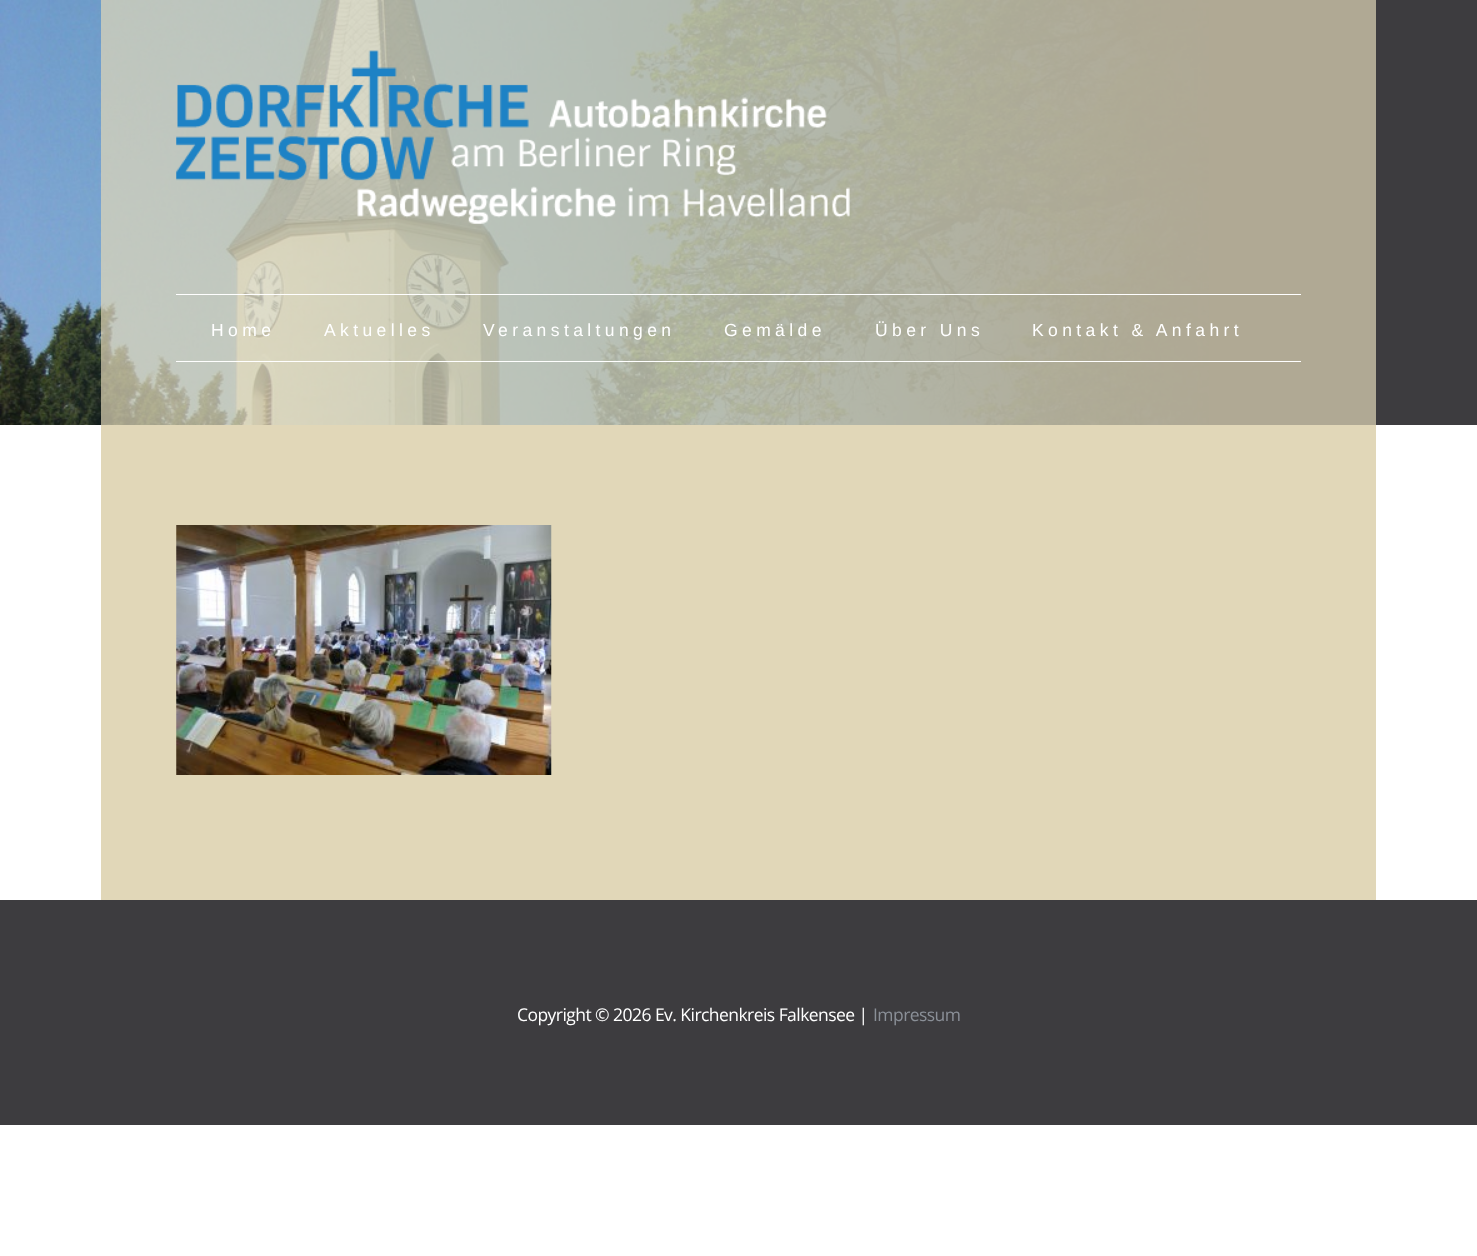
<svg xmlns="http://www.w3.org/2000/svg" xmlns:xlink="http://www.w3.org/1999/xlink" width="1477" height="1256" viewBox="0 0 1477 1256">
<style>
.cls-1{font:17.5px Liberation Sans;letter-spacing:4.4px;fill:#ffffff}
.cls-2{font:17.5px Open Sans;letter-spacing:-0.55px;fill:#ffffff}
.cls-3{font:17.5px Open Sans;letter-spacing:-0.55px;fill:#8a8f97}
</style>
<rect width="100%" height="100%" fill="#ffffff"/>
<rect fill="#3d3c3f" x="1376" y="0" width="101" height="425"/>
<rect fill="#b0a994" x="1209" y="0" width="167" height="425"/>
<image xlink:href="image0.png" x="0" y="0" width="1209" height="425"/>
<image xlink:href="image1.png" x="176" y="50" width="674" height="174"/>
<rect fill="#ffffff" x="176" y="294" width="1125" height="1"/>
<rect fill="#ffffff" x="176" y="361" width="1125" height="1"/>
<rect fill="#e1d7b8" x="101" y="425" width="1275" height="475"/>
<image xlink:href="image2.png" x="176" y="525" width="376" height="250"/>
<rect fill="#3d3c3f" x="0" y="900" width="1477" height="225"/>
<text class="cls-1" x="211" y="336">Home</text>
<text class="cls-1" x="324" y="336">Aktuelles</text>
<text class="cls-1" x="483" y="336">Veranstaltungen</text>
<text class="cls-1" x="724" y="336">Gemälde</text>
<text class="cls-1" x="875" y="336">Über Uns</text>
<text class="cls-1" x="1032" y="336">Kontakt &amp; Anfahrt</text>
<text class="cls-2" x="517" y="1021">Copyright © 2026 Ev. Kirchenkreis Falkensee |</text>
<text class="cls-3" x="873" y="1021">Impressum</text>
</svg>
